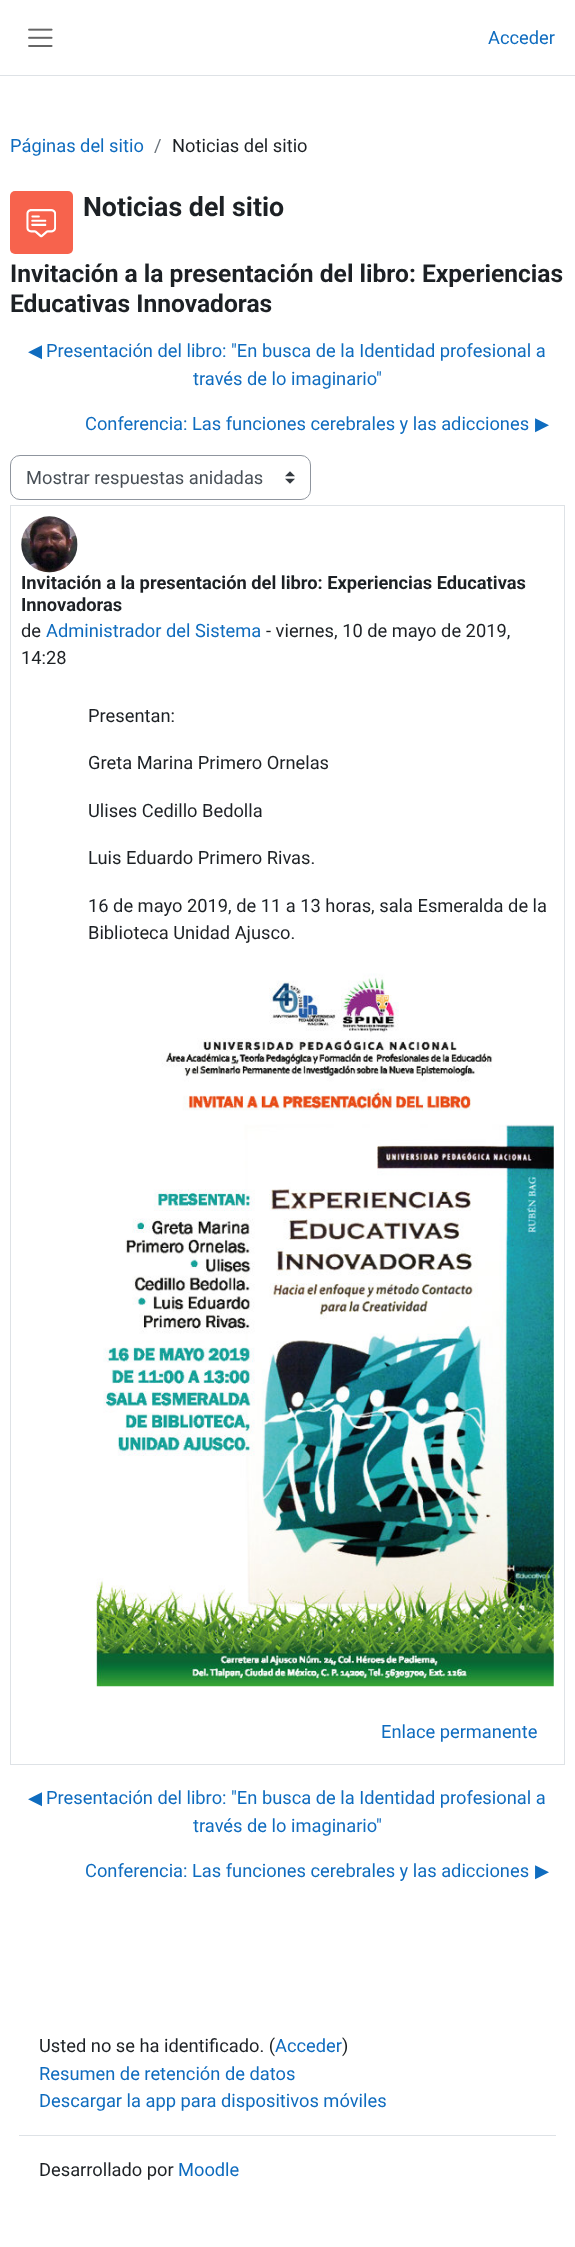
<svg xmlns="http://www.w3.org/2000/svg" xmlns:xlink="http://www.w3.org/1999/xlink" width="575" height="2247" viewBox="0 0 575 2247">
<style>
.cls-1{font:18.3px Roboto;fill:#0f6cbf}
.cls-2{font:18.3px Roboto;fill:#6a737b}
.cls-3{font:18.3px Roboto;fill:#1d2125}
.cls-4{font:bold 26.75px Roboto;fill:#1d2125}
.cls-5{font:bold 24.6px Roboto;fill:#1d2125}
.cls-6{font:18.3px DejaVu Sans;fill:#0f6cbf}
.cls-7{font:18.3px Roboto;fill:#495057}
.cls-8{font:bold 18.3px Roboto;fill:#1d2125}
</style>
<rect width="100%" height="100%" fill="#ffffff"/>
<rect fill="#dee2e6" x="0" y="75" width="575" height="1"/>
<image xlink:href="image0.png" x="28" y="28" width="25" height="19"/>
<rect fill="#f7634d" x="10" y="191" width="63" height="63" rx="5"/>
<image xlink:href="image1.png" x="26" y="209" width="30" height="29"/>
<image xlink:href="image2.png" x="285" y="471" width="10" height="13"/>
<rect fill="none" stroke="#8f959e" x="10.5" y="455.5" width="300" height="44" rx="9.5"/>
<rect fill="none" stroke="#dee2e6" x="10.5" y="505.5" width="554" height="1259"/>
<image xlink:href="image3.png" x="21" y="516" width="57" height="57"/>
<image xlink:href="image4.png" x="96" y="973" width="458" height="714"/>
<rect fill="#dee2e6" x="19" y="2135" width="537" height="1"/>
<text class="cls-1" x="488" y="44">Acceder</text>
<text class="cls-1" x="10" y="152">Páginas del sitio</text>
<text class="cls-2" x="154" y="152">/</text>
<text class="cls-3" x="172" y="152">Noticias del sitio</text>
<text class="cls-4" x="83" y="216">Noticias del sitio</text>
<text class="cls-5"><tspan x="10" y="282">Invitación a la presentación del libro: Experiencias</tspan><tspan x="10" y="312">Educativas Innovadoras</tspan></text>
<text class="cls-6" x="28" y="357">◀︎</text>
<text class="cls-1" x="46" y="357">Presentación del libro: "En busca de la Identidad profesional a</text>
<text class="cls-1" x="193" y="385">través de lo imaginario"</text>
<text class="cls-1" x="85" y="430">Conferencia: Las funciones cerebrales y las adicciones</text>
<text class="cls-6" x="535" y="430">▶︎</text>
<text class="cls-7" x="26" y="484">Mostrar respuestas anidadas</text>
<text class="cls-8"><tspan x="21" y="589">Invitación a la presentación del libro: Experiencias Educativas</tspan><tspan x="21" y="611">Innovadoras</tspan></text>
<text class="cls-3" x="21" y="637">de</text>
<text class="cls-1" x="46" y="637">Administrador del Sistema</text>
<text class="cls-3" x="266" y="637">- viernes, 10 de mayo de 2019,</text>
<text class="cls-3" x="21" y="664">14:28</text>
<text class="cls-3" x="88" y="722">Presentan:</text>
<text class="cls-3" x="88" y="769">Greta Marina Primero Ornelas</text>
<text class="cls-3" x="88" y="817">Ulises Cedillo Bedolla</text>
<text class="cls-3" x="88" y="864">Luis Eduardo Primero Rivas.</text>
<text class="cls-3"><tspan x="88" y="912">16 de mayo 2019, de 11 a 13 horas, sala Esmeralda de la</tspan><tspan x="88" y="939">Biblioteca Unidad Ajusco.</tspan></text>
<text class="cls-1" x="381" y="1738">Enlace permanente</text>
<text class="cls-6" x="28" y="1804">◀︎</text>
<text class="cls-1" x="46" y="1804">Presentación del libro: "En busca de la Identidad profesional a</text>
<text class="cls-1" x="193" y="1832">través de lo imaginario"</text>
<text class="cls-1" x="85" y="1877">Conferencia: Las funciones cerebrales y las adicciones</text>
<text class="cls-6" x="535" y="1877">▶︎</text>
<text class="cls-3" x="39" y="2052">Usted no se ha identificado. (</text>
<text class="cls-1" x="275" y="2052">Acceder</text>
<text class="cls-3" x="342" y="2052">)</text>
<text class="cls-1"><tspan x="39" y="2080">Resumen de retención de datos</tspan><tspan x="39" y="2107">Descargar la app para dispositivos móviles</tspan></text>
<text class="cls-3" x="39" y="2176">Desarrollado por</text>
<text class="cls-1" x="178" y="2176">Moodle</text>
</svg>
